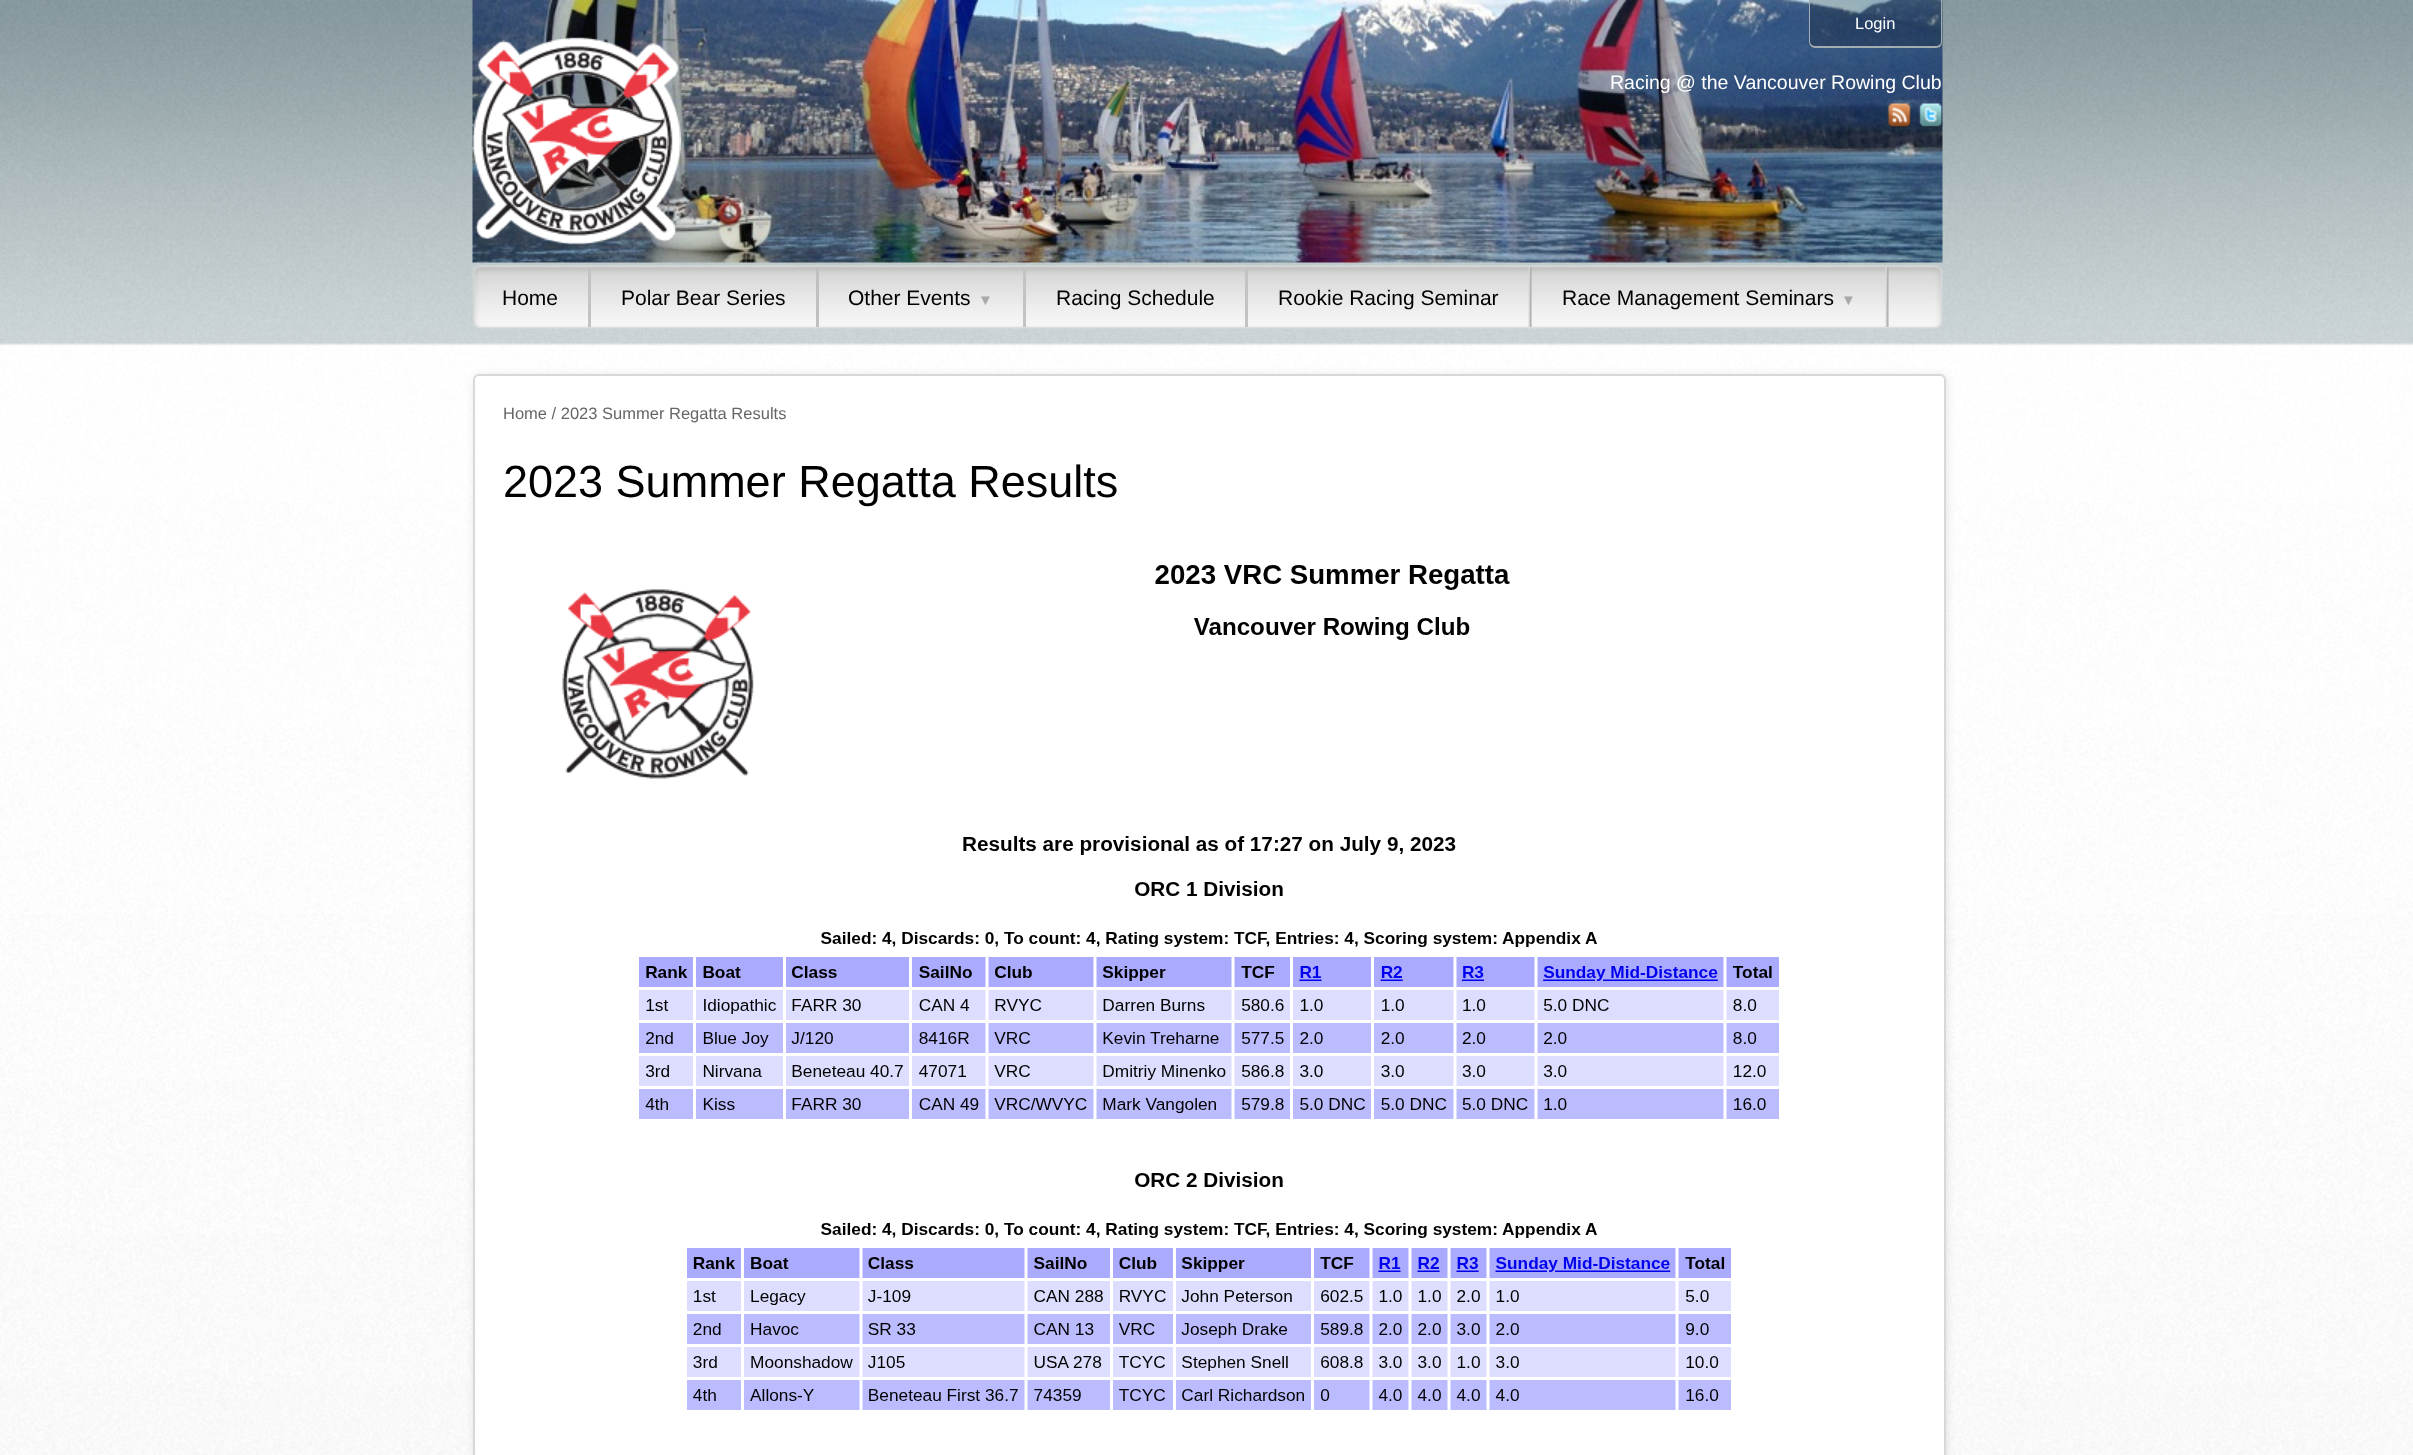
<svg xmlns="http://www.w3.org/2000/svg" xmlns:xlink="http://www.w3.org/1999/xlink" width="2413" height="1455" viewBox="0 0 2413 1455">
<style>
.cls-1{font:16.5px Liberation Sans;fill:#ffffff}
.cls-2{font:19.5px Liberation Sans;fill:#ffffff}
.cls-3{font:21px Liberation Sans;fill:#000000}
.cls-4{font:15px Liberation Sans;fill:#a9a9a9}
.cls-5{font:16.5px Liberation Sans;fill:#666666}
.cls-6{font:45px Liberation Sans;fill:#000000}
</style>
<rect width="100%" height="100%" fill="#ffffff"/>
<image xlink:href="image0.png" x="0" y="0" width="2413" height="1455"/>
<image xlink:href="image1.png" x="472" y="0" width="1471" height="263"/>
<image xlink:href="image2.png" x="1809" y="0" width="134" height="48"/>
<path fill="#a3adb0" fill-rule="evenodd" d="M1809 0H1942V42C1942 45 1940 48 1936 48H1815C1812 48 1809 45 1809 42ZM1810 0H1941V42C1941 44 1939 46 1936 46H1815C1813 46 1810 44 1810 42Z"/>
<image xlink:href="image3.png" x="472" y="37" width="209" height="208"/>
<image xlink:href="image4.png" x="1887" y="103" width="24" height="25"/>
<image xlink:href="image5.png" x="1918" y="103" width="25" height="25"/>
<image xlink:href="image6.png" x="472" y="265" width="1471" height="64"/>
<rect fill="#c3c3c3" x="588" y="267" width="3" height="60"/>
<rect fill="#c0c0c0" x="816" y="267" width="3" height="60"/>
<rect fill="#c3c3c3" x="1023" y="267" width="3" height="60"/>
<rect fill="#c3c3c3" x="1245" y="267" width="3" height="60"/>
<image xlink:href="image7.png" x="1528" y="267" width="4" height="60"/>
<image xlink:href="image7.png" x="1885" y="267" width="4" height="60"/>
<rect fill="#000000" fill-opacity="0.1" filter="blur(4px)" x="474" y="375" width="1473" height="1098" rx="6"/>
<rect fill="#ffffff" stroke="#d8d8d8" stroke-width="2" x="474" y="375" width="1471" height="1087" rx="5"/>
<image xlink:href="image8.png" x="562" y="565" width="1217" height="847"/>
<text class="cls-1" x="1855" y="29">Login</text>
<text class="cls-2" x="1610" y="89">Racing @ the Vancouver Rowing Club</text>
<text class="cls-3" x="502" y="305">Home</text>
<text class="cls-3" x="621" y="305">Polar Bear Series</text>
<text class="cls-3" x="848" y="305">Other Events</text>
<text class="cls-4" x="978" y="305">▼</text>
<text class="cls-3" x="1056" y="305">Racing Schedule</text>
<text class="cls-3" x="1278" y="305">Rookie Racing Seminar</text>
<text class="cls-3" x="1562" y="305">Race Management Seminars</text>
<text class="cls-4" x="1841" y="305">▼</text>
<text class="cls-5" x="503" y="419">Home / 2023 Summer Regatta Results</text>
<text class="cls-6" x="503" y="497">2023 Summer Regatta Results</text>
</svg>
